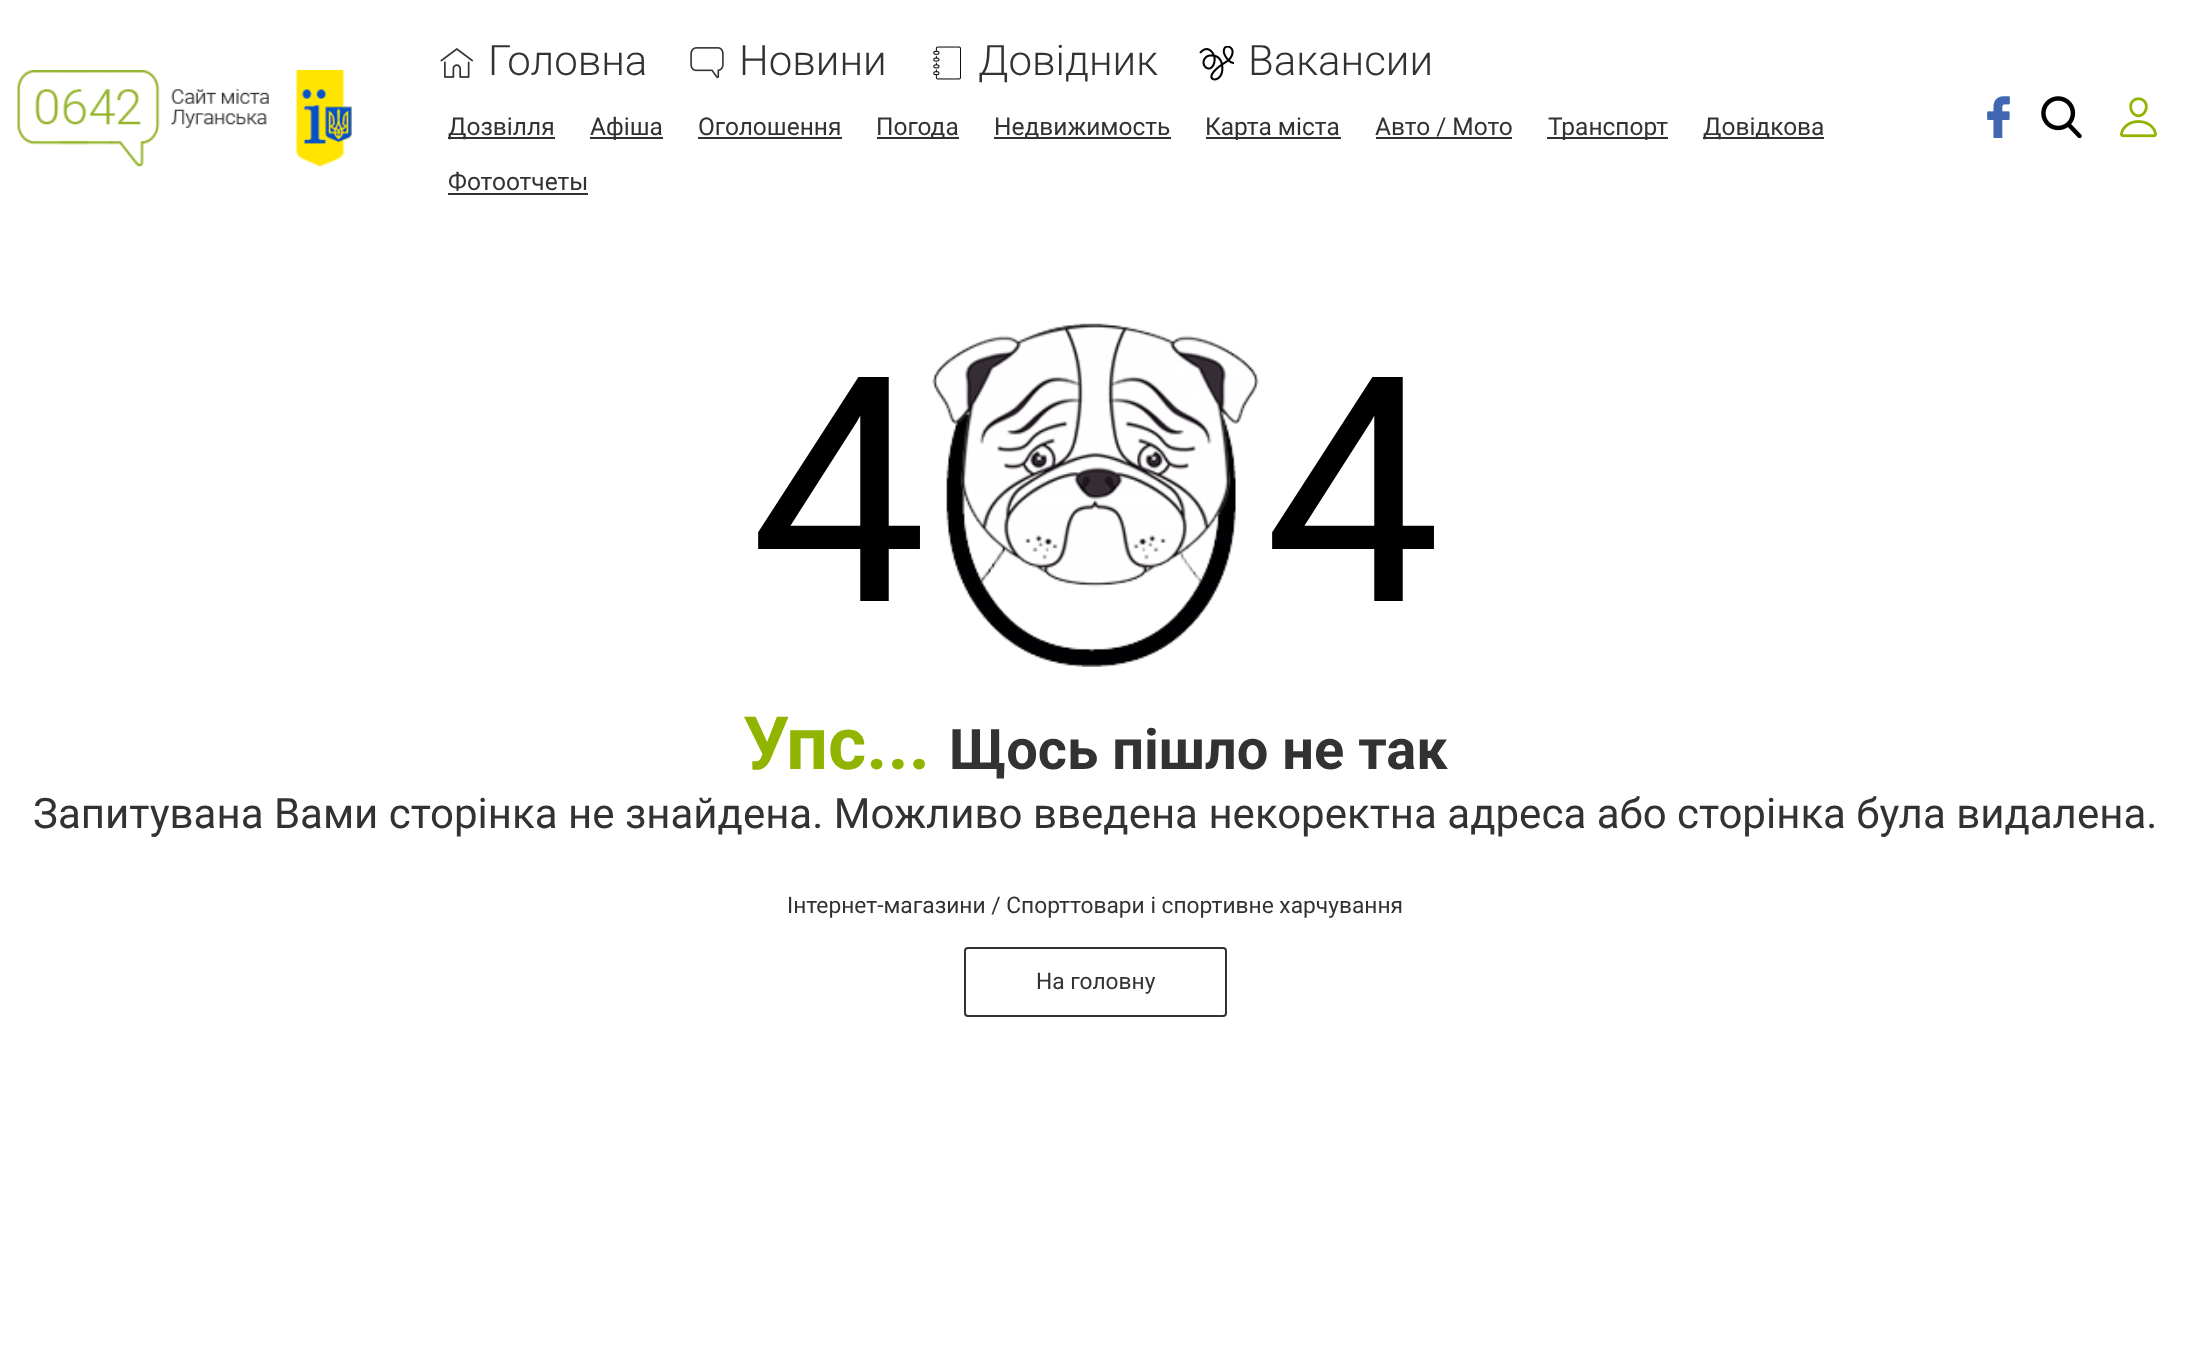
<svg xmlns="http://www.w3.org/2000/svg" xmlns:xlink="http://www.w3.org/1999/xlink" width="2190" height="1368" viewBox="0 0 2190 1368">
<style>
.cls-1{font:300 42px Roboto;fill:#323232}
.cls-2{font:24.5px Roboto;fill:#323232}
.cls-3{font:315px Roboto;fill:#000000}
.cls-4{font:bold 73.5px Roboto;fill:#90b400}
.cls-5{font:bold 56px Roboto;fill:#323232}
.cls-6{font:42px Roboto;fill:#323232}
.cls-7{font:22.75px Roboto;fill:#323232}
</style>
<rect width="100%" height="100%" fill="#ffffff"/>
<image xlink:href="image0.png" x="17" y="70" width="335" height="97"/>
<image xlink:href="image1.png" x="440" y="48" width="34" height="30"/>
<image xlink:href="image2.png" x="690" y="47" width="34" height="32"/>
<image xlink:href="image3.png" x="933" y="46" width="28" height="34"/>
<image xlink:href="image4.png" x="1199" y="46" width="35" height="35"/>
<rect fill="#323232" x="448" y="137" width="107" height="2"/>
<rect fill="#323232" x="590" y="137" width="73" height="2"/>
<rect fill="#323232" x="698" y="137" width="144" height="2"/>
<rect fill="#323232" x="877" y="137" width="82" height="2"/>
<rect fill="#323232" x="994" y="137" width="177" height="2"/>
<rect fill="#323232" x="1206" y="137" width="135" height="2"/>
<rect fill="#323232" x="1376" y="137" width="136" height="2"/>
<rect fill="#323232" x="1547" y="137" width="121" height="2"/>
<rect fill="#323232" x="1703" y="137" width="121" height="2"/>
<rect fill="#323232" x="448" y="193" width="140" height="2"/>
<image xlink:href="image5.png" x="1987" y="96" width="23" height="42"/>
<image xlink:href="image6.png" x="2041" y="96" width="41" height="42"/>
<image xlink:href="image7.png" x="2120" y="97" width="37" height="41"/>
<image xlink:href="image8.png" x="932" y="323" width="327" height="344"/>
<rect fill="none" stroke="#323232" stroke-width="2" x="965" y="948" width="261" height="68" rx="3"/>
<text class="cls-1" x="488" y="75">Головна</text>
<text class="cls-1" x="739" y="75">Новини</text>
<text class="cls-1" x="978" y="75">Довідник</text>
<text class="cls-1" x="1248" y="75">Вакансии</text>
<text class="cls-2" x="448" y="135">Дозвілля</text>
<text class="cls-2" x="590" y="135">Афіша</text>
<text class="cls-2" x="698" y="135">Оголошення</text>
<text class="cls-2" x="876" y="135">Погода</text>
<text class="cls-2" x="994" y="135">Недвижимость</text>
<text class="cls-2" x="1205" y="135">Карта міста</text>
<text class="cls-2" x="1375" y="135">Авто / Мото</text>
<text class="cls-2" x="1548" y="135">Транспорт</text>
<text class="cls-2" x="1703" y="135">Довідкова</text>
<text class="cls-2" x="448" y="190">Фотоотчеты</text>
<text class="cls-3" x="750" y="601">4</text>
<text class="cls-3" x="1264" y="601">4</text>
<text class="cls-4" x="743" y="769">Упс...</text>
<text class="cls-5" x="949" y="769">Щось пішло не так</text>
<text class="cls-6" x="33" y="828">Запитувана Вами сторінка не знайдена. Можливо введена некоректна адреса або сторінка була видалена.</text>
<text class="cls-7" x="787" y="913">Інтернет-магазини / Спорттовари і спортивне харчування</text>
<text class="cls-7" x="1036" y="989">На головну</text>
</svg>
